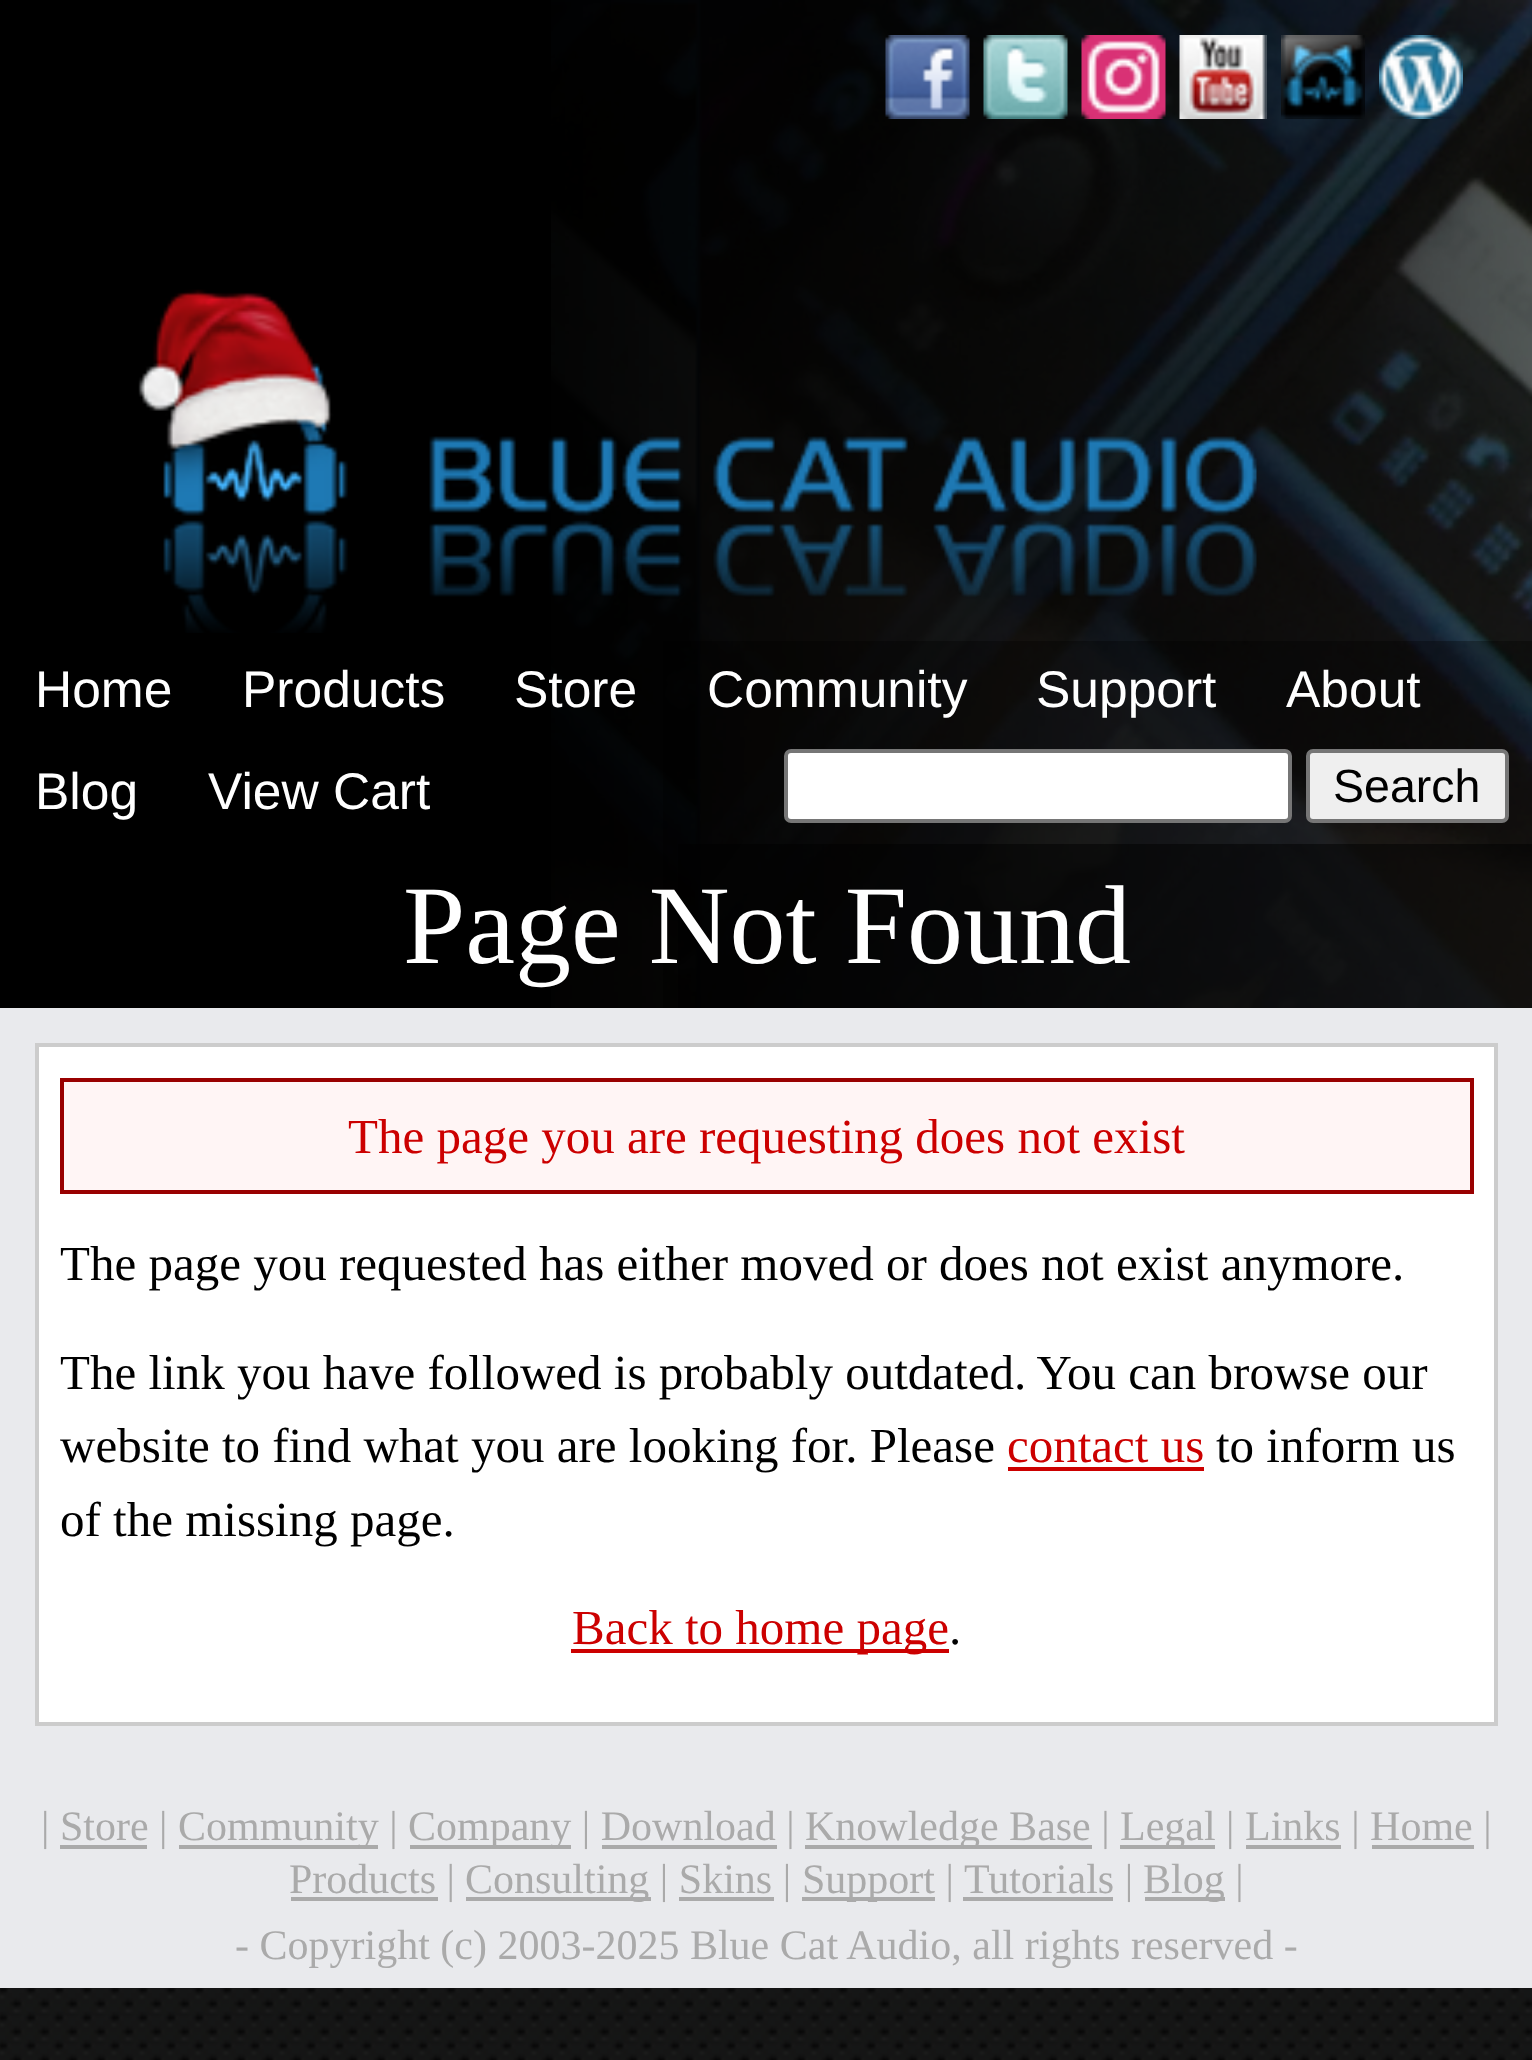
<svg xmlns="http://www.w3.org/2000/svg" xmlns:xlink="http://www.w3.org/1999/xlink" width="1532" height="2060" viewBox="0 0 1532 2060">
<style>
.cls-1{font:51.5px Liberation Sans;fill:#ffffff}
.cls-2{font:46.5px Liberation Sans;fill:#000000}
.cls-3{font:112px Liberation Serif;fill:#ffffff}
.cls-4{font:49px Liberation Serif;fill:#cc0000}
.cls-5{font:49px Liberation Serif;fill:#000000}
.cls-6{font:42px Liberation Serif;fill:#aaaaaa}
</style>
<rect width="100%" height="100%" fill="#ffffff"/>
<image xlink:href="image0.png" x="0" y="1988" width="1532" height="72"/>
<rect fill="#e9eaed" x="0" y="1008" width="1532" height="980"/>
<rect fill="#000000" x="0" y="0" width="551" height="1008"/>
<image xlink:href="image1.png" x="551" y="0" width="981" height="1008"/>
<image xlink:href="image2.png" x="885" y="35" width="85" height="84"/>
<image xlink:href="image3.png" x="983" y="35" width="85" height="84"/>
<image xlink:href="image4.png" x="1081" y="35" width="85" height="84"/>
<image xlink:href="image5.png" x="1179" y="35" width="88" height="84"/>
<image xlink:href="image6.png" x="1281" y="35" width="84" height="84"/>
<image xlink:href="image7.png" x="1379" y="35" width="84" height="84"/>
<image xlink:href="image8.png" x="138" y="289" width="1119" height="344"/>
<rect fill="#000000" fill-opacity="0.3" x="663" y="641" width="869" height="367"/>
<rect fill="#ffffff" stroke="#767676" stroke-width="4" x="786" y="751" width="504" height="70" rx="5"/>
<rect fill="#efefef" stroke="#767676" stroke-width="4" x="1308" y="751" width="199" height="70" rx="5"/>
<rect fill="#000000" fill-opacity="0.5" x="678" y="844" width="854" height="164"/>
<rect fill="#ffffff" stroke="#cccccc" stroke-width="4" x="37" y="1045" width="1459" height="679"/>
<rect fill="#fff5f5" stroke="#990000" stroke-width="4" x="62" y="1080" width="1410" height="112"/>
<rect fill="#cc0000" x="1008" y="1467" width="196" height="4"/>
<rect fill="#cc0000" x="571" y="1649" width="378" height="4"/>
<rect fill="#aaaaaa" x="179" y="1845" width="199" height="4"/>
<rect fill="#aaaaaa" x="410" y="1845" width="161" height="4"/>
<rect fill="#aaaaaa" x="805" y="1845" width="287" height="4"/>
<rect fill="#aaaaaa" x="1120" y="1845" width="95" height="4"/>
<rect fill="#aaaaaa" x="60" y="1845" width="87" height="4"/>
<rect fill="#aaaaaa" x="602" y="1845" width="175" height="4"/>
<rect fill="#aaaaaa" x="1246" y="1845" width="95" height="4"/>
<rect fill="#aaaaaa" x="1372" y="1845" width="102" height="4"/>
<rect fill="#aaaaaa" x="291" y="1897" width="147" height="4"/>
<rect fill="#aaaaaa" x="466" y="1897" width="185" height="4"/>
<rect fill="#aaaaaa" x="802" y="1897" width="133" height="4"/>
<rect fill="#aaaaaa" x="963" y="1897" width="150" height="4"/>
<rect fill="#aaaaaa" x="1145" y="1897" width="80" height="4"/>
<rect fill="#aaaaaa" x="679" y="1897" width="95" height="4"/>
<text class="cls-1" x="35" y="707">Home</text>
<text class="cls-1" x="242" y="707">Products</text>
<text class="cls-1" x="514" y="707">Store</text>
<text class="cls-1" x="707" y="707">Community</text>
<text class="cls-1" x="1036" y="707">Support</text>
<text class="cls-1" x="1286" y="707">About</text>
<text class="cls-1" x="35" y="809">Blog</text>
<text class="cls-1" x="208" y="809">View Cart</text>
<text class="cls-2" x="1333" y="802">Search</text>
<text class="cls-3" x="403" y="963">Page Not Found</text>
<text class="cls-4" x="348" y="1153">The page you are requesting does not exist</text>
<text class="cls-5" x="60" y="1280">The page you requested has either moved or does not exist anymore.</text>
<text class="cls-5"><tspan x="60" y="1389">The link you have followed is probably outdated. You can browse our</tspan><tspan x="60" y="1462">website to find what you are looking for. Please</tspan></text>
<text class="cls-4" x="1007" y="1462">contact us</text>
<text class="cls-5" x="1216" y="1462">to inform us</text>
<text class="cls-5" x="60" y="1536">of the missing page.</text>
<text class="cls-4" x="572" y="1644">Back to home page</text>
<text class="cls-5" x="949" y="1644">.</text>
<text class="cls-6" x="41" y="1840">| Store |</text>
<text class="cls-6" x="178" y="1840">Community |</text>
<text class="cls-6" x="408" y="1840">Company | Download |</text>
<text class="cls-6" x="805" y="1840">Knowledge Base |</text>
<text class="cls-6" x="1120" y="1840">Legal | Links | Home |</text>
<text class="cls-6" x="289" y="1893">Products |</text>
<text class="cls-6" x="465" y="1893">Consulting | Skins |</text>
<text class="cls-6" x="802" y="1893">Support |</text>
<text class="cls-6" x="964" y="1893">Tutorials |</text>
<text class="cls-6" x="1143" y="1893">Blog |</text>
<text class="cls-6" x="235" y="1959">- Copyright (c) 2003-2025 Blue Cat Audio, all rights reserved -</text>
</svg>
